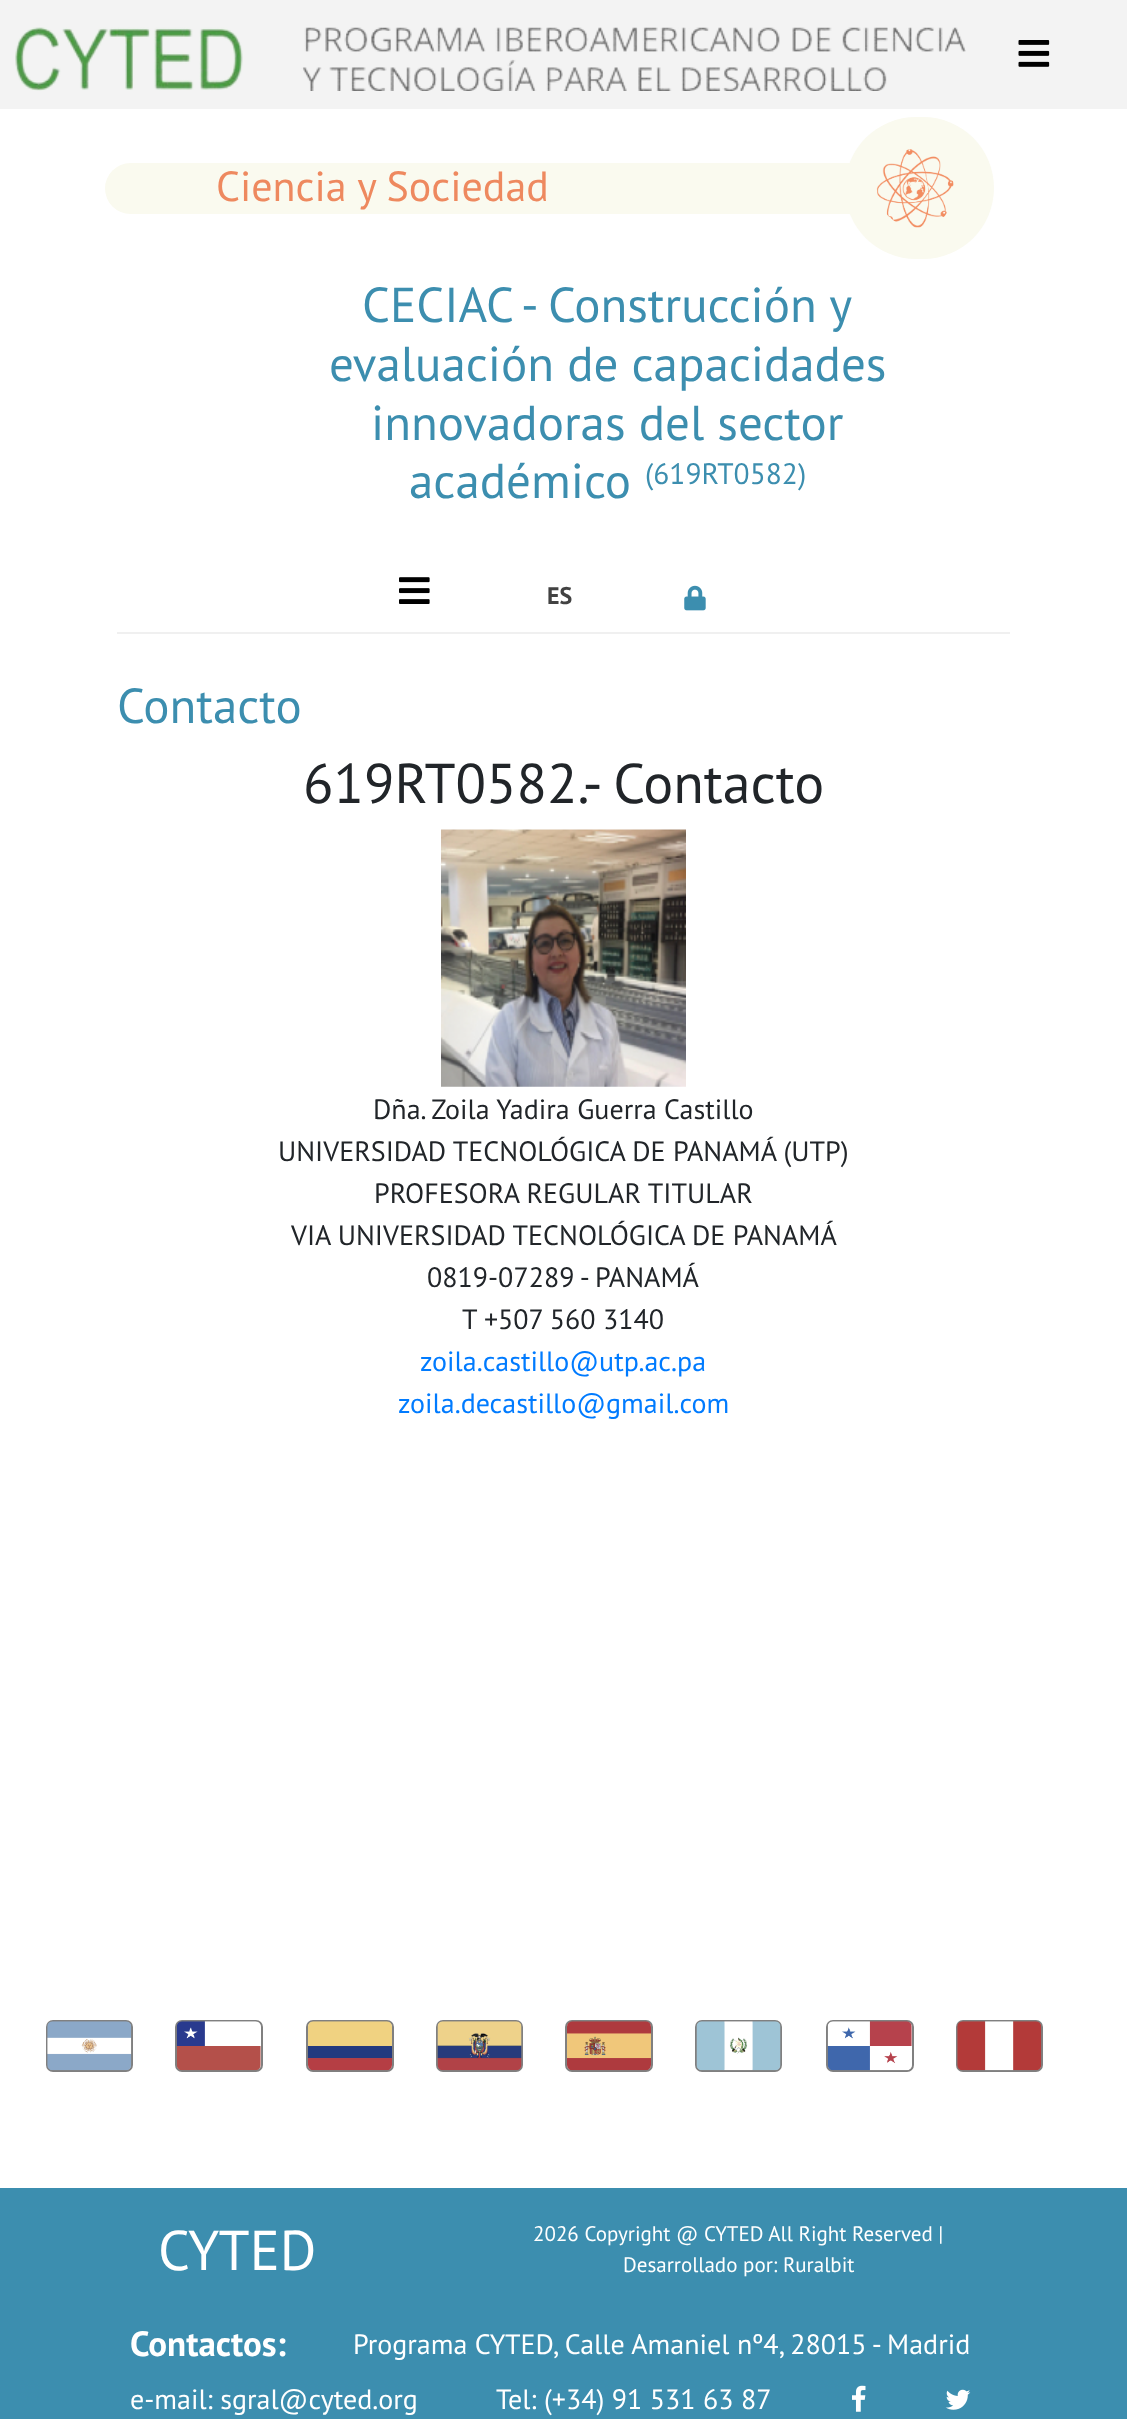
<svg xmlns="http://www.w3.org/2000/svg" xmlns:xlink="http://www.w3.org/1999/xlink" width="1127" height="2419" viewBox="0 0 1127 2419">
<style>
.cls-1{font:42px PT Sans;fill:#ee895f}
.cls-2{font:49px PT Sans;fill:#3c8eaf}
.cls-3{font:29.5px PT Sans;fill:#3c8eaf}
.cls-4{font:bold 24px PT Sans;fill:#424242}
.cls-5{font:56px PT Sans;fill:#212529}
.cls-6{font:28px PT Sans;fill:#212529}
.cls-7{font:28px PT Sans;fill:#007bff}
.cls-8{font:56px PT Sans;fill:#ffffff}
.cls-9{font:21px PT Sans;fill:#ffffff}
.cls-10{font:bold 35px PT Sans;fill:#ffffff}
.cls-11{font:28px PT Sans;fill:#ffffff}
</style>
<rect width="100%" height="100%" fill="#ffffff"/>
<rect fill="#f3f3f3" x="0" y="0" width="1127" height="109"/>
<image xlink:href="image0.png" x="15" y="27" width="951" height="64"/>
<image xlink:href="image1.png" x="1018" y="40" width="32" height="27"/>
<rect fill="#f0f0f0" x="117" y="632" width="893" height="2"/>
<rect fill="#fafaef" x="105" y="163" width="840" height="51" rx="25.5"/>
<rect fill="#fafaef" x="845" y="117" width="149" height="142" rx="71"/>
<image xlink:href="image2.png" x="876" y="149" width="78" height="79"/>
<image xlink:href="image3.png" x="399" y="577" width="31" height="27"/>
<image xlink:href="image4.png" x="684" y="585" width="22" height="26"/>
<image xlink:href="image5.png" x="441" y="829" width="245" height="258"/>
<rect fill="none" stroke="#808080" stroke-width="2" x="47" y="2021" width="85" height="50" rx="6"/>
<image xlink:href="image6.png" x="47" y="2021" width="85" height="50"/>
<rect fill="none" stroke="#808080" stroke-width="2" x="176" y="2021" width="86" height="50" rx="6"/>
<image xlink:href="image7.png" x="176" y="2021" width="85" height="50"/>
<rect fill="none" stroke="#808080" stroke-width="2" x="307" y="2021" width="86" height="50" rx="6"/>
<image xlink:href="image8.png" x="308" y="2021" width="84" height="50"/>
<rect fill="none" stroke="#808080" stroke-width="2" x="437" y="2021" width="85" height="50" rx="6"/>
<image xlink:href="image9.png" x="437" y="2021" width="85" height="50"/>
<rect fill="none" stroke="#808080" stroke-width="2" x="566" y="2021" width="86" height="50" rx="6"/>
<image xlink:href="image10.png" x="567" y="2021" width="84" height="50"/>
<rect fill="none" stroke="#808080" stroke-width="2" x="696" y="2021" width="85" height="50" rx="6"/>
<image xlink:href="image11.png" x="696" y="2021" width="85" height="50"/>
<rect fill="none" stroke="#808080" stroke-width="2" x="827" y="2021" width="86" height="50" rx="6"/>
<image xlink:href="image12.png" x="827" y="2021" width="85" height="50"/>
<rect fill="none" stroke="#808080" stroke-width="2" x="957" y="2021" width="85" height="50" rx="6"/>
<image xlink:href="image13.png" x="957" y="2021" width="85" height="50"/>
<rect fill="#3c8eaf" x="0" y="2188" width="1127" height="231"/>
<image xlink:href="image14.png" x="852" y="2385" width="14" height="27"/>
<image xlink:href="image15.png" x="945" y="2389" width="26" height="21"/>
<text class="cls-1" x="216" y="201">Ciencia y Sociedad</text>
<text class="cls-2" x="362" y="322">CECIAC - Construcción y</text>
<text class="cls-2" x="329" y="381">evaluación de capacidades</text>
<text class="cls-2" x="371" y="440">innovadoras del sector</text>
<text class="cls-2" x="409" y="498">académico</text>
<text class="cls-3" x="645" y="484">(619RT0582)</text>
<text class="cls-4" x="547" y="604">ES</text>
<text class="cls-2" x="117" y="723">Contacto</text>
<text class="cls-5" x="303" y="803">619RT0582.- Contacto</text>
<text class="cls-6" x="373" y="1119">Dña. Zoila Yadira Guerra Castillo</text>
<text class="cls-6" x="278" y="1161">UNIVERSIDAD TECNOLÓGICA DE PANAMÁ (UTP)</text>
<text class="cls-6" x="374" y="1203">PROFESORA REGULAR TITULAR</text>
<text class="cls-6" x="291" y="1245">VIA UNIVERSIDAD TECNOLÓGICA DE PANAMÁ</text>
<text class="cls-6" x="427" y="1287">0819-07289 - PANAMÁ</text>
<text class="cls-6" x="462" y="1329">T +507 560 3140</text>
<text class="cls-7" x="420" y="1371">zoila.castillo@utp.ac.pa</text>
<text class="cls-7" x="398" y="1413">zoila.decastillo@gmail.com</text>
<text class="cls-8" x="158" y="2270">CYTED</text>
<text class="cls-9" x="533" y="2241">2026 Copyright @ CYTED All Right Reserved |</text>
<text class="cls-9" x="623" y="2272">Desarrollado por: Ruralbit</text>
<text class="cls-10" x="130" y="2356">Contactos:</text>
<text class="cls-11" x="353" y="2354">Programa CYTED, Calle Amaniel nº4, 28015 - Madrid</text>
<text class="cls-11" x="130" y="2409">e-mail: sgral@cyted.org</text>
<text class="cls-11" x="496" y="2409">Tel: (+34) 91 531 63 87</text>
</svg>
